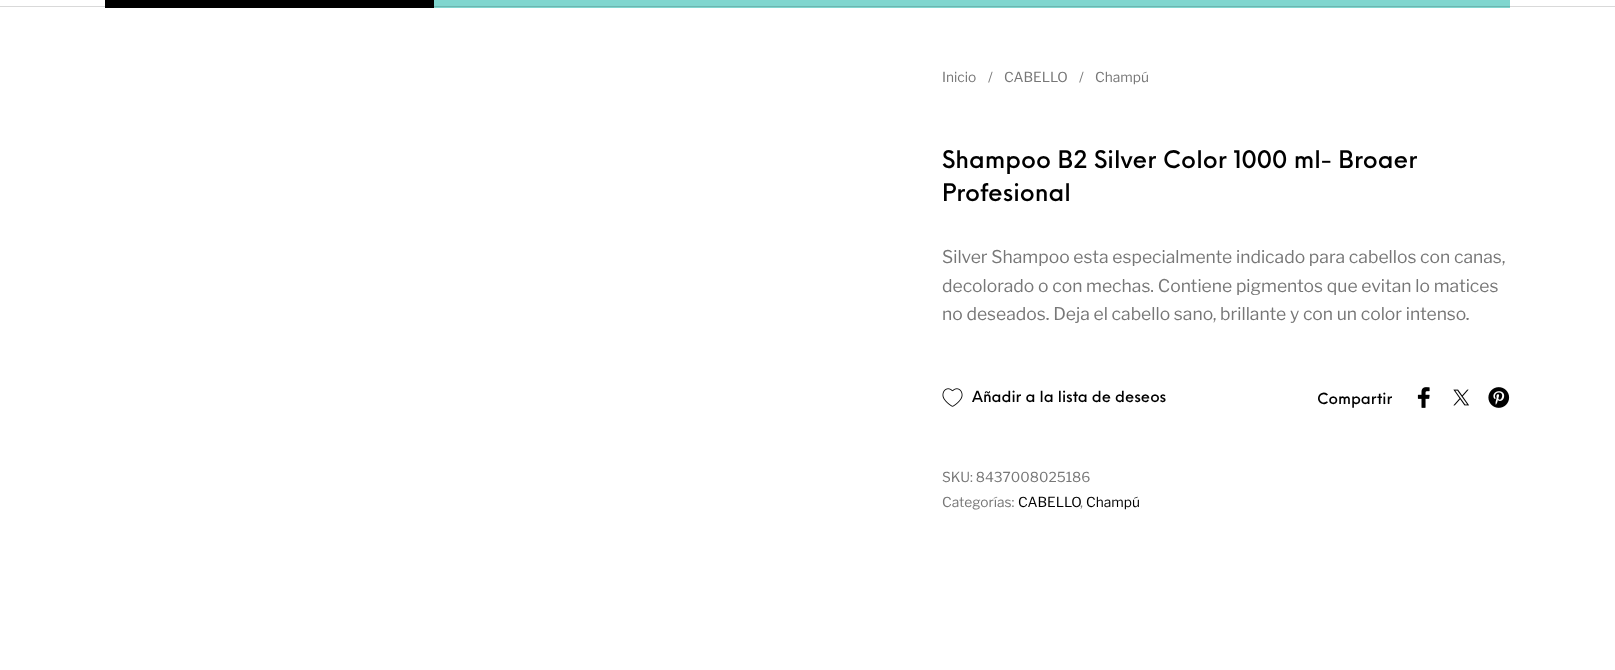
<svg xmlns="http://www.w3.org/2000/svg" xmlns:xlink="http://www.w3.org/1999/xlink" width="1615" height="670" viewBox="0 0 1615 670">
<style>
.cls-1{font:13.75px Libre Franklin;fill:#777777}
.cls-2{font:500 23.75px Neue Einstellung;fill:#000000}
.cls-3{font:17.5px Libre Franklin;fill:#777777}
.cls-4{font:500 15px Neue Einstellung;fill:#000000}
.cls-5{font:13.75px Libre Franklin;fill:#000000}
</style>
<rect width="100%" height="100%" fill="#ffffff"/>
<rect fill="#d9d9d9" x="0" y="6" width="1615" height="1"/>
<rect fill="#000000" x="105" y="0" width="329" height="8"/>
<rect fill="#80d6cf" x="434" y="0" width="1076" height="8"/>
<rect fill="#6db6b0" x="434" y="6" width="1076" height="1"/>
<image xlink:href="image0.png" x="942" y="388" width="21" height="19"/>
<image xlink:href="image1.png" x="1417" y="387" width="13" height="21"/>
<image xlink:href="image2.png" x="1453" y="389" width="16" height="17"/>
<image xlink:href="image3.png" x="1488" y="387" width="22" height="21"/>
<text class="cls-1" x="942" y="82">Inicio</text>
<text class="cls-1" x="988" y="82">/</text>
<text class="cls-1" x="1004" y="82">CABELLO</text>
<text class="cls-1" x="1079" y="82">/</text>
<text class="cls-1" x="1095" y="82">Champú</text>
<text class="cls-2"><tspan x="942" y="168">Shampoo B2 Silver Color 1000 ml- Broaer</tspan><tspan x="942" y="201">Profesional</tspan></text>
<text class="cls-3"><tspan x="942" y="263">Silver Shampoo esta especialmente indicado para cabellos con canas,</tspan><tspan x="942" y="292">decolorado o con mechas. Contiene pigmentos que evitan lo matices</tspan><tspan x="942" y="320">no deseados. Deja el cabello sano, brillante y con un color intenso.</tspan></text>
<text class="cls-4" x="972" y="402">Añadir a la lista de deseos</text>
<text class="cls-4" x="1317" y="404">Compartir</text>
<text class="cls-1"><tspan x="942" y="482">SKU: 8437008025186</tspan><tspan x="942" y="507">Categorías:</tspan></text>
<text class="cls-5" x="1018" y="507">CABELLO</text>
<text class="cls-1" x="1080" y="507">,</text>
<text class="cls-5" x="1086" y="507">Champú</text>
</svg>
